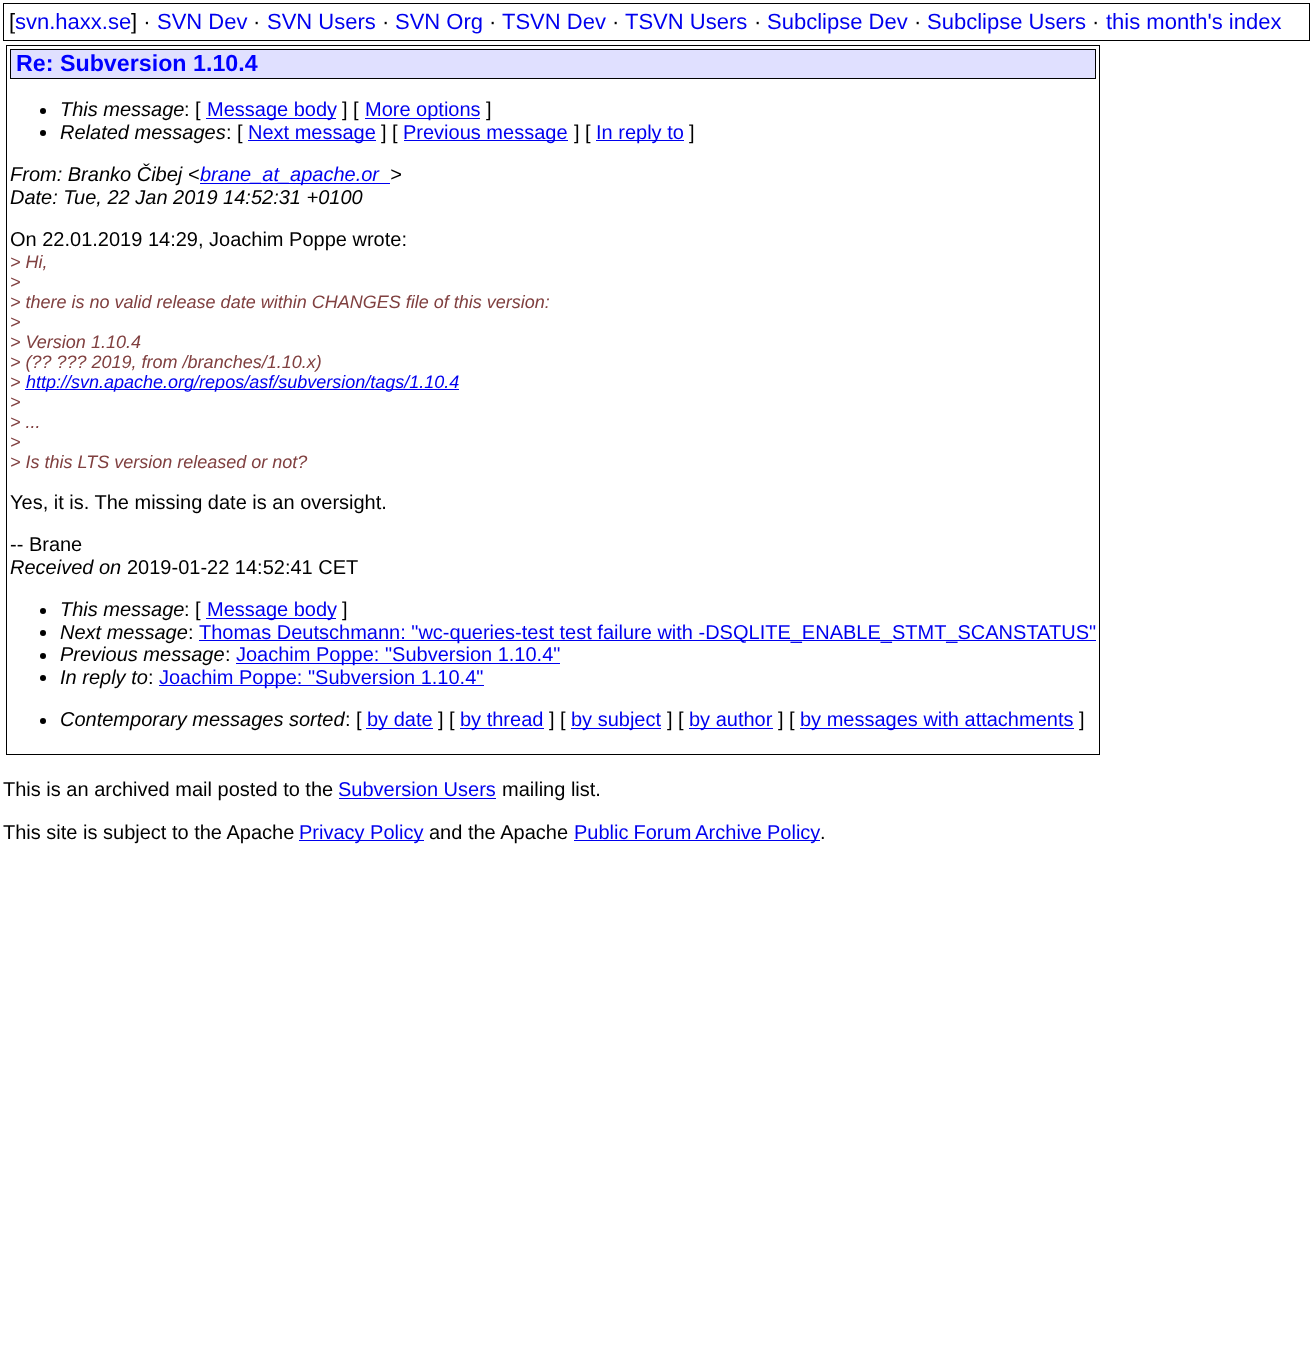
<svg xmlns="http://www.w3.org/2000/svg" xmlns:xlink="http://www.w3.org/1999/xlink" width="1312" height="1369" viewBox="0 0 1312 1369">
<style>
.cls-1{font:22px Liberation Sans;fill:#000000}
.cls-2{font:22px Liberation Sans;fill:#0000ee}
.cls-3{font:bold 23.25px Liberation Sans;fill:#0000ff}
.cls-4{font:italic 20px Liberation Sans;fill:#000000}
.cls-5{font:20px Liberation Sans;fill:#000000}
.cls-6{font:20px Liberation Sans;fill:#0000ee}
.cls-7{font:italic 20px Liberation Sans;fill:#0000ee}
.cls-8{font:italic 18px Liberation Sans;fill:#804040}
.cls-9{font:italic 18px Liberation Sans;fill:#0000ee}
</style>
<rect width="100%" height="100%" fill="#ffffff"/>
<rect fill="none" stroke="#000000" x="3.5" y="3.5" width="1306" height="37"/>
<rect fill="none" stroke="#000000" x="6.5" y="45.5" width="1093" height="709"/>
<rect fill="#e0e0ff" stroke="#000000" x="10.5" y="49.5" width="1085" height="29"/>
<circle fill="#000000" cx="43" cy="111" r="3"/>
<rect fill="#0000ee" x="206" y="118" width="130" height="1"/>
<rect fill="#0000ee" x="365" y="118" width="115" height="1"/>
<circle fill="#000000" cx="43" cy="133" r="3"/>
<rect fill="#0000ee" x="248" y="140" width="128" height="1"/>
<rect fill="#0000ee" x="404" y="140" width="164" height="1"/>
<rect fill="#0000ee" x="596" y="140" width="88" height="1"/>
<rect fill="#0000ee" x="200" y="183" width="190" height="1"/>
<rect fill="#0000ee" x="25" y="389" width="434" height="1"/>
<circle fill="#000000" cx="43" cy="611" r="3"/>
<rect fill="#0000ee" x="206" y="618" width="130" height="1"/>
<circle fill="#000000" cx="43" cy="633" r="3"/>
<rect fill="#0000ee" x="199" y="640" width="897" height="1"/>
<circle fill="#000000" cx="43" cy="656" r="3"/>
<rect fill="#0000ee" x="236" y="663" width="324" height="1"/>
<circle fill="#000000" cx="43" cy="678" r="3"/>
<rect fill="#0000ee" x="159" y="685" width="325" height="1"/>
<circle fill="#000000" cx="43" cy="721" r="3"/>
<rect fill="#0000ee" x="366" y="728" width="67" height="1"/>
<rect fill="#0000ee" x="460" y="728" width="84" height="1"/>
<rect fill="#0000ee" x="571" y="728" width="90" height="1"/>
<rect fill="#0000ee" x="689" y="728" width="84" height="1"/>
<rect fill="#0000ee" x="800" y="728" width="274" height="1"/>
<rect fill="#0000ee" x="339" y="798" width="157" height="1"/>
<rect fill="#0000ee" x="299" y="840" width="125" height="1"/>
<rect fill="#0000ee" x="574" y="840" width="246" height="1"/>
<text class="cls-1" x="9" y="29">[</text>
<text class="cls-2" x="15" y="29">svn.haxx.se</text>
<text class="cls-1" x="131" y="29">] ·</text>
<text class="cls-2" x="157" y="29">SVN Dev</text>
<text class="cls-1" x="253" y="29">·</text>
<text class="cls-2" x="267" y="29">SVN Users</text>
<text class="cls-1" x="382" y="29">·</text>
<text class="cls-2" x="395" y="29">SVN Org</text>
<text class="cls-1" x="489" y="29">·</text>
<text class="cls-2" x="502" y="29">TSVN Dev</text>
<text class="cls-1" x="612" y="29">·</text>
<text class="cls-2" x="625" y="29">TSVN Users</text>
<text class="cls-1" x="754" y="29">·</text>
<text class="cls-2" x="767" y="29">Subclipse Dev</text>
<text class="cls-1" x="914" y="29">·</text>
<text class="cls-2" x="927" y="29">Subclipse Users</text>
<text class="cls-1" x="1092" y="29">·</text>
<text class="cls-2" x="1106" y="29">this month's index</text>
<text class="cls-3" x="16" y="71">Re: Subversion 1.10.4</text>
<text class="cls-4" x="60" y="116">This message</text>
<text class="cls-5" x="184" y="116">: [</text>
<text class="cls-6" x="207" y="116">Message body</text>
<text class="cls-5" x="342" y="116">] [</text>
<text class="cls-6" x="365" y="116">More options</text>
<text class="cls-5" x="486" y="116">]</text>
<text class="cls-4" x="60" y="139">Related messages</text>
<text class="cls-5" x="226" y="139">: [</text>
<text class="cls-6" x="248" y="139">Next message</text>
<text class="cls-5" x="381" y="139">] [</text>
<text class="cls-6" x="403" y="139">Previous message</text>
<text class="cls-5" x="574" y="139">] [</text>
<text class="cls-6" x="596" y="139">In reply to</text>
<text class="cls-5" x="689" y="139">]</text>
<text class="cls-4" x="10" y="181">From: Branko Čibej &lt;</text>
<text class="cls-7" x="200" y="181">brane_at_apache.or</text>
<text class="cls-4" x="390" y="181">&gt;</text>
<text class="cls-4" x="10" y="204">Date: Tue, 22 Jan 2019 14:52:31 +0100</text>
<text class="cls-5" x="10" y="246">On 22.01.2019 14:29, Joachim Poppe wrote:</text>
<text class="cls-8"><tspan x="10" y="268">&gt; Hi,</tspan><tspan x="10" y="288">&gt;</tspan><tspan x="10" y="308">&gt; there is no valid release date within CHANGES file of this version:</tspan><tspan x="10" y="328">&gt;</tspan><tspan x="10" y="348">&gt; Version 1.10.4</tspan><tspan x="10" y="368">&gt; (?? ??? 2019, from /branches/1.10.x)</tspan><tspan x="10" y="388">&gt;</tspan></text>
<text class="cls-9" x="26" y="388">http://svn.apache.org/repos/asf/subversion/tags/1.10.4</text>
<text class="cls-8"><tspan x="10" y="408">&gt;</tspan><tspan x="10" y="428">&gt; ...</tspan><tspan x="10" y="448">&gt;</tspan><tspan x="10" y="468">&gt; Is this LTS version released or not?</tspan></text>
<text class="cls-5" x="10" y="509">Yes, it is. The missing date is an oversight.</text>
<text class="cls-5" x="10" y="551">-- Brane</text>
<text class="cls-4" x="10" y="574">Received on</text>
<text class="cls-5" x="127" y="574">2019-01-22 14:52:41 CET</text>
<text class="cls-4" x="60" y="616">This message</text>
<text class="cls-5" x="184" y="616">: [</text>
<text class="cls-6" x="207" y="616">Message body</text>
<text class="cls-5" x="342" y="616">]</text>
<text class="cls-4" x="60" y="639">Next message</text>
<text class="cls-5" x="188" y="639">:</text>
<text class="cls-6" x="199" y="639">Thomas Deutschmann: "wc-queries-test test failure with -DSQLITE_ENABLE_STMT_SCANSTATUS"</text>
<text class="cls-4" x="60" y="661">Previous message</text>
<text class="cls-5" x="225" y="661">:</text>
<text class="cls-6" x="236" y="661">Joachim Poppe: "Subversion 1.10.4"</text>
<text class="cls-4" x="60" y="684">In reply to</text>
<text class="cls-5" x="148" y="684">:</text>
<text class="cls-6" x="159" y="684">Joachim Poppe: "Subversion 1.10.4"</text>
<text class="cls-4" x="60" y="726">Contemporary messages sorted</text>
<text class="cls-5" x="345" y="726">: [</text>
<text class="cls-6" x="367" y="726">by date</text>
<text class="cls-5" x="438" y="726">] [</text>
<text class="cls-6" x="460" y="726">by thread</text>
<text class="cls-5" x="549" y="726">] [</text>
<text class="cls-6" x="571" y="726">by subject</text>
<text class="cls-5" x="667" y="726">] [</text>
<text class="cls-6" x="689" y="726">by author</text>
<text class="cls-5" x="778" y="726">] [</text>
<text class="cls-6" x="800" y="726">by messages with attachments</text>
<text class="cls-5" x="1079" y="726">]</text>
<text class="cls-5" x="3" y="796">This is an archived mail posted to the</text>
<text class="cls-6" x="338" y="796">Subversion Users</text>
<text class="cls-5" x="502" y="796">mailing list.</text>
<text class="cls-5" x="3" y="839">This site is subject to the Apache</text>
<text class="cls-6" x="299" y="839">Privacy Policy</text>
<text class="cls-5" x="429" y="839">and the Apache</text>
<text class="cls-6" x="574" y="839" word-spacing="-0.5">Public Forum Archive Policy</text>
<text class="cls-5" x="820" y="839">.</text>
</svg>
